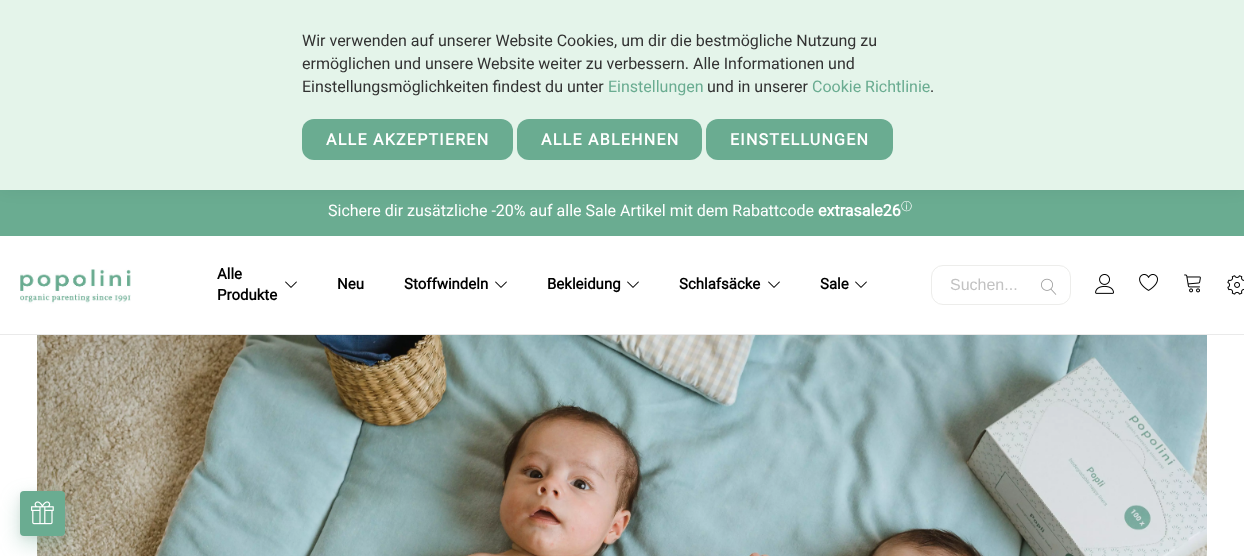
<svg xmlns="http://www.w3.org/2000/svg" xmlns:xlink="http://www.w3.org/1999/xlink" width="1244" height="556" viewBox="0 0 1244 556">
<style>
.cls-1{font:16px Roboto;fill:#323232}
.cls-2{font:16px Roboto;fill:#6aac91}
.cls-3{font:bold 16px Roboto;letter-spacing:1.25px;fill:#ffffff}
.cls-4{font:16px Roboto;fill:#ffffff}
.cls-5{font:bold 16px Roboto;fill:#ffffff}
.cls-6{font:500 11px WenQuanYi Zen Hei;fill:#ffffff}
.cls-7{font:bold 15px Roboto;fill:#000000}
.cls-8{font:16px Liberation Sans;fill:#c2c2c2}
</style>
<rect width="100%" height="100%" fill="#ffffff"/>
<rect fill="#6aac91" x="0" y="190" width="1244" height="46"/>
<rect fill="#000000" fill-opacity="0.06" filter="blur(9px)" x="0" y="-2" width="1244" height="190"/>
<rect fill="#e4f4ea" x="0" y="0" width="1244" height="190"/>
<rect fill="#6aac91" x="302" y="119" width="211" height="41" rx="12"/>
<rect fill="#6aac91" x="517" y="119" width="185" height="41" rx="12"/>
<rect fill="#6aac91" x="706" y="119" width="187" height="41" rx="12"/>
<rect fill="#eaeaea" x="0" y="334" width="1244" height="1"/>
<image xlink:href="image0.png" x="20" y="269" width="111" height="35"/>
<image xlink:href="image1.png" x="285" y="281" width="12" height="7"/>
<image xlink:href="image1.png" x="495" y="281" width="12" height="7"/>
<image xlink:href="image1.png" x="627" y="281" width="12" height="7"/>
<image xlink:href="image1.png" x="768" y="281" width="12" height="7"/>
<image xlink:href="image1.png" x="855" y="281" width="12" height="7"/>
<rect fill="none" stroke="#ededeb" x="931.5" y="265.5" width="139" height="39" rx="11.5"/>
<image xlink:href="image2.png" x="1041" y="278" width="16" height="17"/>
<image xlink:href="image3.png" x="1095" y="274" width="19" height="20"/>
<image xlink:href="image4.png" x="1139" y="274" width="19" height="17"/>
<image xlink:href="image5.png" x="1184" y="274" width="17" height="19"/>
<image xlink:href="image6.png" x="1227" y="275" width="17" height="20"/>
<image xlink:href="image7.png" x="37" y="335" width="1170" height="221"/>
<rect fill="#000000" fill-opacity="0.05" filter="blur(3px)" x="20" y="493" width="45" height="45" rx="4"/>
<rect fill="#6aac91" fill-opacity="0.35" filter="blur(10px)" x="20" y="499" width="45" height="45" rx="4"/>
<rect fill="#6aac91" x="20" y="491" width="45" height="45" rx="4"/>
<image xlink:href="image8.png" x="31" y="501" width="23" height="24"/>
<text class="cls-1"><tspan x="302" y="46">Wir verwenden auf unserer Website Cookies, um dir die bestmögliche Nutzung zu</tspan><tspan x="302" y="69">ermöglichen und unsere Website weiter zu verbessern. Alle Informationen und</tspan><tspan x="302" y="92">Einstellungsmöglichkeiten findest du unter</tspan></text>
<text class="cls-2" x="608" y="92">Einstellungen</text>
<text class="cls-1" x="707" y="92">und in unserer</text>
<text class="cls-2" x="812" y="92">Cookie Richtlinie</text>
<text class="cls-1" x="930" y="92">.</text>
<text class="cls-3" x="326" y="145">ALLE AKZEPTIEREN</text>
<text class="cls-3" x="541" y="145">ALLE ABLEHNEN</text>
<text class="cls-3" x="730" y="145">EINSTELLUNGEN</text>
<text class="cls-4" x="328" y="216">Sichere dir zusätzliche -20% auf alle Sale Artikel mit dem Rabattcode</text>
<text class="cls-5" x="818" y="216">extrasale26</text>
<text class="cls-6" x="901" y="210">ⓘ</text>
<text class="cls-7"><tspan x="217" y="279">Alle</tspan><tspan x="217" y="300">Produkte</tspan></text>
<text class="cls-7" x="337" y="289">Neu</text>
<text class="cls-7" x="404" y="289">Stoffwindeln</text>
<text class="cls-7" x="547" y="289">Bekleidung</text>
<text class="cls-7" x="679" y="289">Schlafsäcke</text>
<text class="cls-7" x="820" y="289">Sale</text>
<text class="cls-8" x="950" y="290">Suchen...</text>
</svg>
